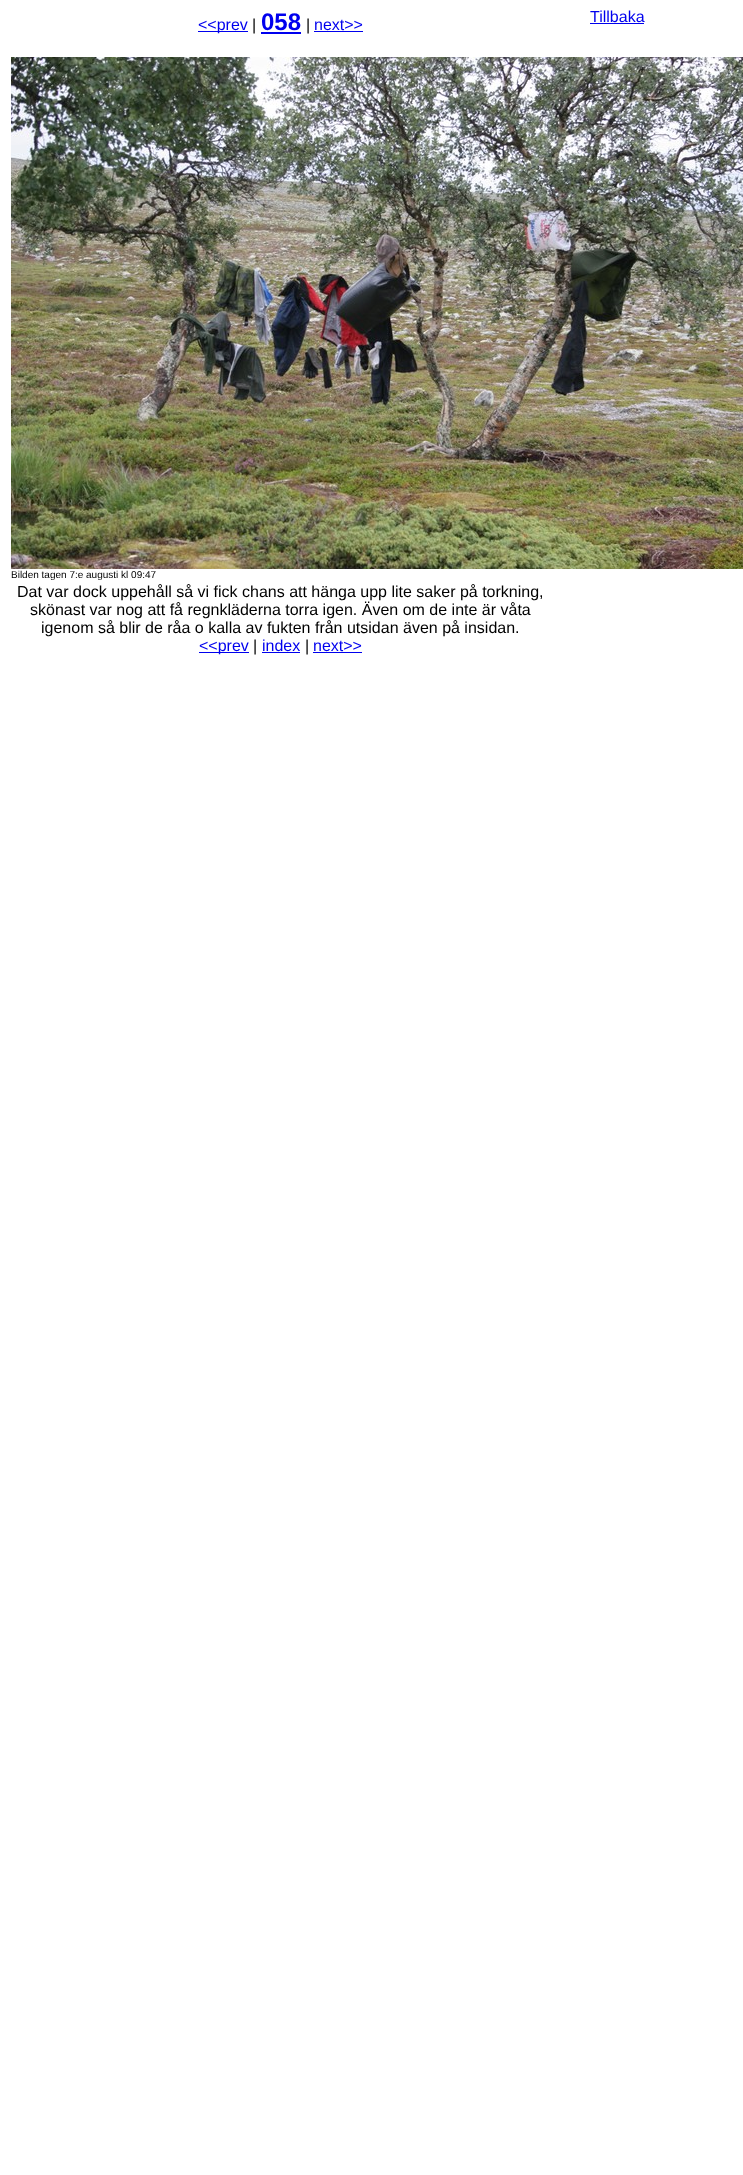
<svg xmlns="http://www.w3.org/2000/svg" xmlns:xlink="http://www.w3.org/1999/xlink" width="743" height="2175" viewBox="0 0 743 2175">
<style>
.cls-1{font:16px Liberation Sans;fill:#0000ee}
.cls-2{font:16px Liberation Sans;fill:#000000}
.cls-3{font:bold 24px Liberation Sans;fill:#0000ee}
.cls-4{font:10px Liberation Sans;fill:#000000}
</style>
<rect width="100%" height="100%" fill="#ffffff"/>
<rect fill="#0000ee" x="198" y="31" width="50" height="1"/>
<rect fill="#0000ee" x="261" y="32" width="40" height="2"/>
<rect fill="#0000ee" x="314" y="31" width="49" height="1"/>
<image xlink:href="image0.png" x="11" y="57" width="732" height="512"/>
<rect fill="#0000ee" x="199" y="652" width="50" height="1"/>
<rect fill="#0000ee" x="262" y="652" width="38" height="1"/>
<rect fill="#0000ee" x="313" y="652" width="49" height="1"/>
<rect fill="#0000ee" x="590" y="23" width="54" height="1"/>
<text class="cls-1" x="198" y="30">&lt;&lt;prev</text>
<text class="cls-2" x="252" y="30">|</text>
<text class="cls-3" x="261" y="30">058</text>
<text class="cls-2" x="306" y="30">|</text>
<text class="cls-1" x="314" y="30">next&gt;&gt;</text>
<text class="cls-4" x="11" y="578">Bilden tagen 7:e augusti kl 09:47</text>
<text class="cls-2" x="17" y="597">Dat var dock uppehåll så vi fick chans att hänga upp lite saker på torkning,</text>
<text class="cls-2" x="30" y="615">skönast var nog att få regnkläderna torra igen. Även om de inte är våta</text>
<text class="cls-2" x="41" y="633">igenom så blir de råa o kalla av fukten från utsidan även på insidan.</text>
<text class="cls-1" x="199" y="651">&lt;&lt;prev</text>
<text class="cls-2" x="253" y="651">|</text>
<text class="cls-1" x="262" y="651">index</text>
<text class="cls-2" x="305" y="651">|</text>
<text class="cls-1" x="313" y="651">next&gt;&gt;</text>
<text class="cls-1" x="590" y="22">Tillbaka</text>
</svg>
